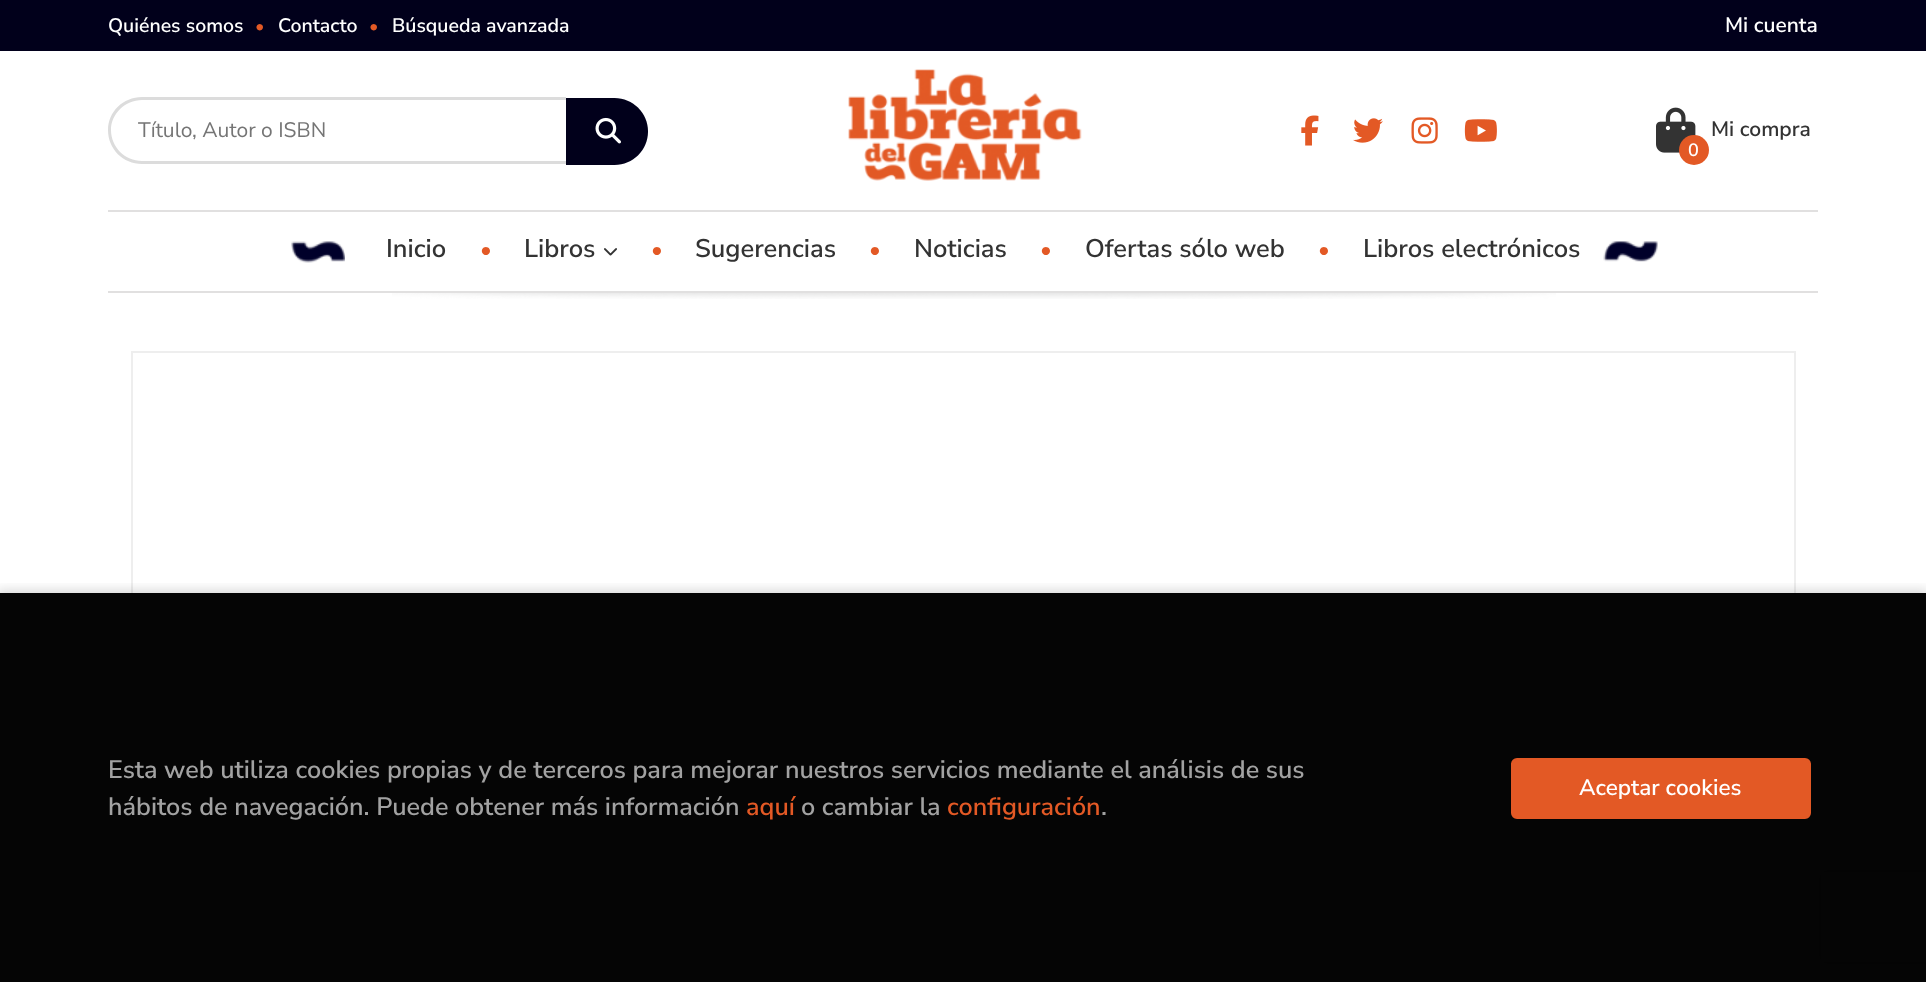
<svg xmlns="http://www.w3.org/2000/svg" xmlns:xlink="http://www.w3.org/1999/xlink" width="1926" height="982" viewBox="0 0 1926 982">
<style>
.cls-1{font:600 19.5px Nunito Sans;fill:#ffffff}
.cls-2{font:600 18px Nunito Sans;fill:#e35925}
.cls-3{font:600 21px Nunito Sans;fill:#ffffff}
.cls-4{font:21px Nunito Sans;fill:#757575}
.cls-5{font:600 21px Nunito Sans;fill:#333333}
.cls-6{font:600 18px Nunito Sans;fill:#ffffff}
.cls-7{font:600 25.5px Nunito Sans;fill:#333333}
.cls-8{font:600 22.5px Nunito Sans;fill:#e35925}
.cls-9{font:600 25.2px Nunito Sans;fill:#a2a2a2}
.cls-10{font:600 25.2px Nunito Sans;fill:#e35925}
.cls-11{font:600 22.5px Nunito Sans;fill:#ffffff}
</style>
<defs>
<clipPath id="clip1"><path d="M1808 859H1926V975H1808ZM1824 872H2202C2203.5 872 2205 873.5 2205 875V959C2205 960.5 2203.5 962 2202 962H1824C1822.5 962 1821 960.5 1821 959V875C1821 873.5 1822.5 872 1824 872Z" clip-rule="evenodd"/></clipPath>
<clipPath id="clip2"><rect x="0" y="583" width="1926" height="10"/></clipPath>
</defs>
<rect width="100%" height="100%" fill="#ffffff"/>
<rect fill="#01001b" x="0" y="0" width="1926" height="51"/>
<path fill="#dcdcdc" fill-rule="evenodd" d="M142 97H566V164H142C123 164 108 149 108 130C108 112 123 97 142 97ZM142 100H566V161H142C125 161 111 147 111 130C111 114 125 100 142 100Z"/>
<path fill="#01001b" d="M566 98H614.5C633 98 648 113 648 131.5C648 150 633 165 614.5 165H566Z"/>
<image xlink:href="image0.png" x="595" y="117" width="26" height="27"/>
<image xlink:href="image1.png" x="848" y="69" width="234" height="112"/>
<image xlink:href="image2.png" x="1301" y="115" width="18" height="31"/>
<image xlink:href="image3.png" x="1353" y="118" width="30" height="25"/>
<image xlink:href="image4.png" x="1411" y="117" width="27" height="27"/>
<image xlink:href="image5.png" x="1464" y="119" width="33" height="23"/>
<image xlink:href="image6.png" x="1656" y="107" width="40" height="46"/>
<circle fill="#e35925" cx="1694" cy="150" r="15"/>
<image xlink:href="image7.png" x="392" y="293" width="1164" height="6"/>
<rect fill="#e1e0e0" x="108" y="210" width="1710" height="2"/>
<rect fill="#e1e0e0" x="108" y="291" width="1710" height="2"/>
<image xlink:href="image8.png" x="291" y="241" width="54" height="22"/>
<image xlink:href="image9.png" x="604" y="248" width="13" height="8"/>
<image xlink:href="image10.png" x="1603" y="241" width="55" height="21"/>
<rect fill="none" stroke="#eeeeee" stroke-width="2" x="132" y="352" width="1663" height="561"/>
<g clip-path="url(#clip1)">
<rect fill="#808080" filter="blur(4px)" x="1821" y="872" width="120" height="90" rx="3"/>
</g>
<g clip-path="url(#clip2)">
<rect fill="#000000" fill-opacity="0.15" filter="blur(6px)" x="-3" y="590" width="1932" height="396"/>
</g>
<rect fill="#000000" fill-opacity="0.98" x="0" y="593" width="1926" height="389"/>
<rect fill="#e35925" stroke="#e35925" stroke-width="2" x="1512" y="759" width="298" height="59" rx="5"/>
<text class="cls-1" x="108" y="32">Quiénes somos</text>
<text class="cls-2" x="255" y="32">•</text>
<text class="cls-1" x="278" y="32">Contacto</text>
<text class="cls-2" x="369" y="32">•</text>
<text class="cls-1" x="392" y="32">Búsqueda avanzada</text>
<text class="cls-3" x="1725" y="32">Mi cuenta</text>
<text class="cls-4" x="138" y="137">Título, Autor o ISBN</text>
<text class="cls-5" x="1711" y="136">Mi compra</text>
<text class="cls-6" x="1688" y="156">0</text>
<text class="cls-7" x="386" y="257">Inicio</text>
<text class="cls-8" x="480" y="257">•</text>
<text class="cls-7" x="524" y="257">Libros</text>
<text class="cls-8" x="651" y="257">•</text>
<text class="cls-7" x="695" y="257">Sugerencias</text>
<text class="cls-8" x="869" y="257">•</text>
<text class="cls-7" x="914" y="257">Noticias</text>
<text class="cls-8" x="1040" y="257">•</text>
<text class="cls-7" x="1085" y="257">Ofertas sólo web</text>
<text class="cls-8" x="1318" y="257">•</text>
<text class="cls-7" x="1363" y="257">Libros electrónicos</text>
<text class="cls-9"><tspan x="108" y="778">Esta web utiliza cookies propias y de terceros para mejorar nuestros servicios mediante el análisis de sus</tspan><tspan x="108" y="815">hábitos de navegación. Puede obtener más información</tspan></text>
<text class="cls-10" x="746" y="815">aquí</text>
<text class="cls-9" x="801" y="815">o cambiar la</text>
<text class="cls-10" x="947" y="815">configuración</text>
<text class="cls-9" x="1101" y="815">.</text>
<text class="cls-11" x="1579" y="795">Aceptar cookies</text>
</svg>
